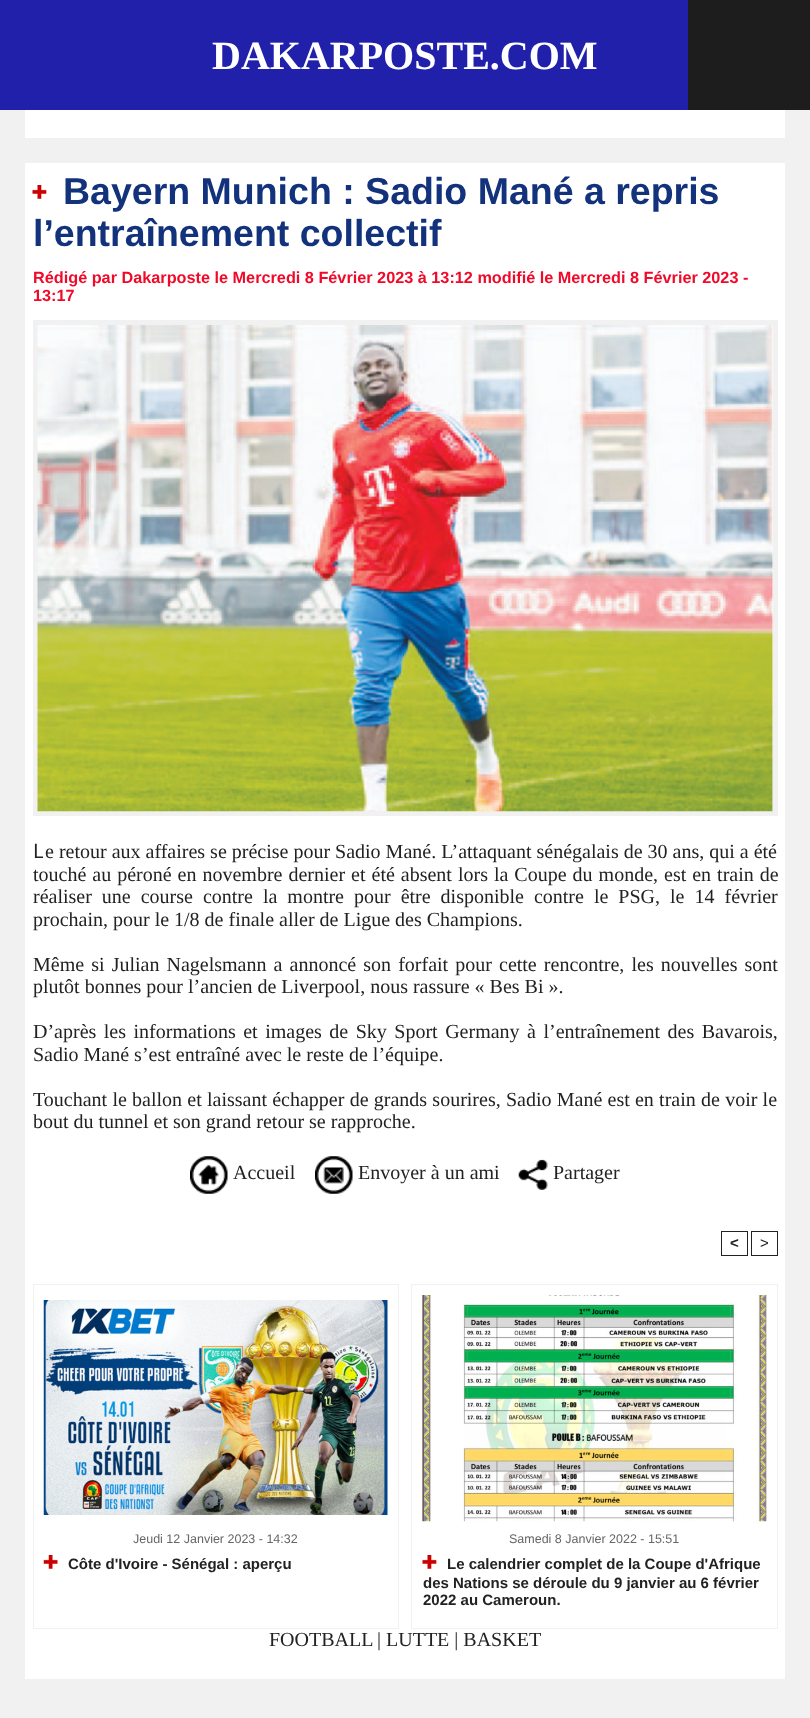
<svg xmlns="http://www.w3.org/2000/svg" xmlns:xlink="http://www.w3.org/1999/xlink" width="810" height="1718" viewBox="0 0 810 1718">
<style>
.cls-1{font:bold 40px Liberation Serif;fill:#ffffff}
.cls-2{font:bold 37.5px Liberation Sans;fill:#13327c}
.cls-3{font:bold 16.25px Liberation Sans;fill:#f00928}
.cls-4{font:20px Noto Sans;fill:#222222}
.cls-5{font:20px Liberation Serif;fill:#222222}
.cls-6{font:bold 15px Liberation Sans;fill:#222222}
.cls-7{font:15px Liberation Sans;fill:#222222}
.cls-8{font:12.5px Liberation Sans;fill:#666666}
</style>
<rect width="100%" height="100%" fill="#f1f1f1"/>
<rect fill="#2020ab" x="0" y="0" width="688" height="110"/>
<rect fill="#1d1d1d" x="688" y="0" width="122" height="110"/>
<rect fill="#ffffff" x="25" y="110" width="760" height="28"/>
<rect fill="#ffffff" x="25" y="163" width="760" height="1516"/>
<image xlink:href="image0.png" x="32" y="185" width="15" height="14"/>
<rect fill="none" stroke="#f1f1f1" stroke-width="5" x="35.5" y="322.5" width="740" height="491"/>
<image xlink:href="image1.png" x="37" y="325" width="736" height="487"/>
<image xlink:href="image2.png" x="190" y="1156" width="38" height="38"/>
<image xlink:href="image3.png" x="315" y="1156" width="38" height="38"/>
<image xlink:href="image4.png" x="518" y="1159" width="30" height="31"/>
<rect fill="none" stroke="#222222" x="721.5" y="1231.5" width="26" height="24"/>
<rect fill="none" stroke="#222222" x="751.5" y="1231.5" width="26" height="24"/>
<rect fill="none" stroke="#f1f1f1" x="33.5" y="1284.5" width="365" height="344"/>
<image xlink:href="image5.png" x="43" y="1300" width="345" height="215"/>
<image xlink:href="image6.png" x="43" y="1555" width="15" height="14"/>
<rect fill="none" stroke="#f1f1f1" x="411.5" y="1284.5" width="366" height="344"/>
<image xlink:href="image7.png" x="422" y="1295" width="345" height="227"/>
<image xlink:href="image0.png" x="422" y="1555" width="15" height="14"/>
<text class="cls-1" x="212" y="69">DAKARPOSTE.COM</text>
<text class="cls-2" x="63" y="204">Bayern Munich : Sadio Mané a repris</text>
<text class="cls-2" x="33" y="246">l’entraînement collectif</text>
<text class="cls-3"><tspan x="33" y="283">Rédigé par Dakarposte le Mercredi 8 Février 2023 à 13:12 modifié le Mercredi 8 Février 2023 -</tspan><tspan x="33" y="301">13:17</tspan></text>
<text class="cls-4" x="33" y="858">L</text>
<text class="cls-5" x="45" y="858">e retour aux affaires se précise pour Sadio Mané. L’attaquant sénégalais de 30 ans, qui a été</text>
<text class="cls-5"><tspan x="33" y="881" word-spacing="1">touché au péroné en novembre dernier et été absent lors la Coupe du monde, est en train de</tspan><tspan x="33" y="903" word-spacing="5">réaliser une course contre la montre pour être disponible contre le PSG, le 14 février</tspan><tspan x="33" y="926">prochain, pour le 1/8 de finale aller de Ligue des Champions.</tspan></text>
<text class="cls-5"><tspan x="33" y="971" word-spacing="2.1">Même si Julian Nagelsmann a annoncé son forfait pour cette rencontre, les nouvelles sont</tspan><tspan x="33" y="993">plutôt bonnes pour l’ancien de Liverpool, nous rassure « Bes Bi ».</tspan></text>
<text class="cls-5"><tspan x="33" y="1038" word-spacing="2.5">D’après les informations et images de Sky Sport Germany à l’entraînement des Bavarois,</tspan><tspan x="33" y="1061">Sadio Mané s’est entraîné avec le reste de l’équipe.</tspan></text>
<text class="cls-5"><tspan x="33" y="1106" word-spacing="0.25">Touchant le ballon et laissant échapper de grands sourires, Sadio Mané est en train de voir le</tspan><tspan x="33" y="1128">bout du tunnel et son grand retour se rapproche.</tspan></text>
<text class="cls-5" x="233" y="1179">Accueil</text>
<text class="cls-5" x="358" y="1179">Envoyer à un ami</text>
<text class="cls-5" x="553" y="1179">Partager</text>
<text class="cls-6" x="730" y="1248">&lt;</text>
<text class="cls-7" x="760" y="1248">&gt;</text>
<text class="cls-8" x="133" y="1543">Jeudi 12 Janvier 2023 - 14:32</text>
<text class="cls-6" x="68" y="1569">Côte d'Ivoire - Sénégal : aperçu</text>
<text class="cls-8" x="509" y="1543">Samedi 8 Janvier 2022 - 15:51</text>
<text class="cls-6" x="447" y="1569">Le calendrier complet de la Coupe d'Afrique</text>
<text class="cls-6"><tspan x="423" y="1588">des Nations se déroule du 9 janvier au 6 février</tspan><tspan x="423" y="1605">2022 au Cameroun.</tspan></text>
<text class="cls-5" x="269" y="1646">FOOTBALL</text>
<text class="cls-5" x="377" y="1646">| LUTTE | BASKET</text>
</svg>
